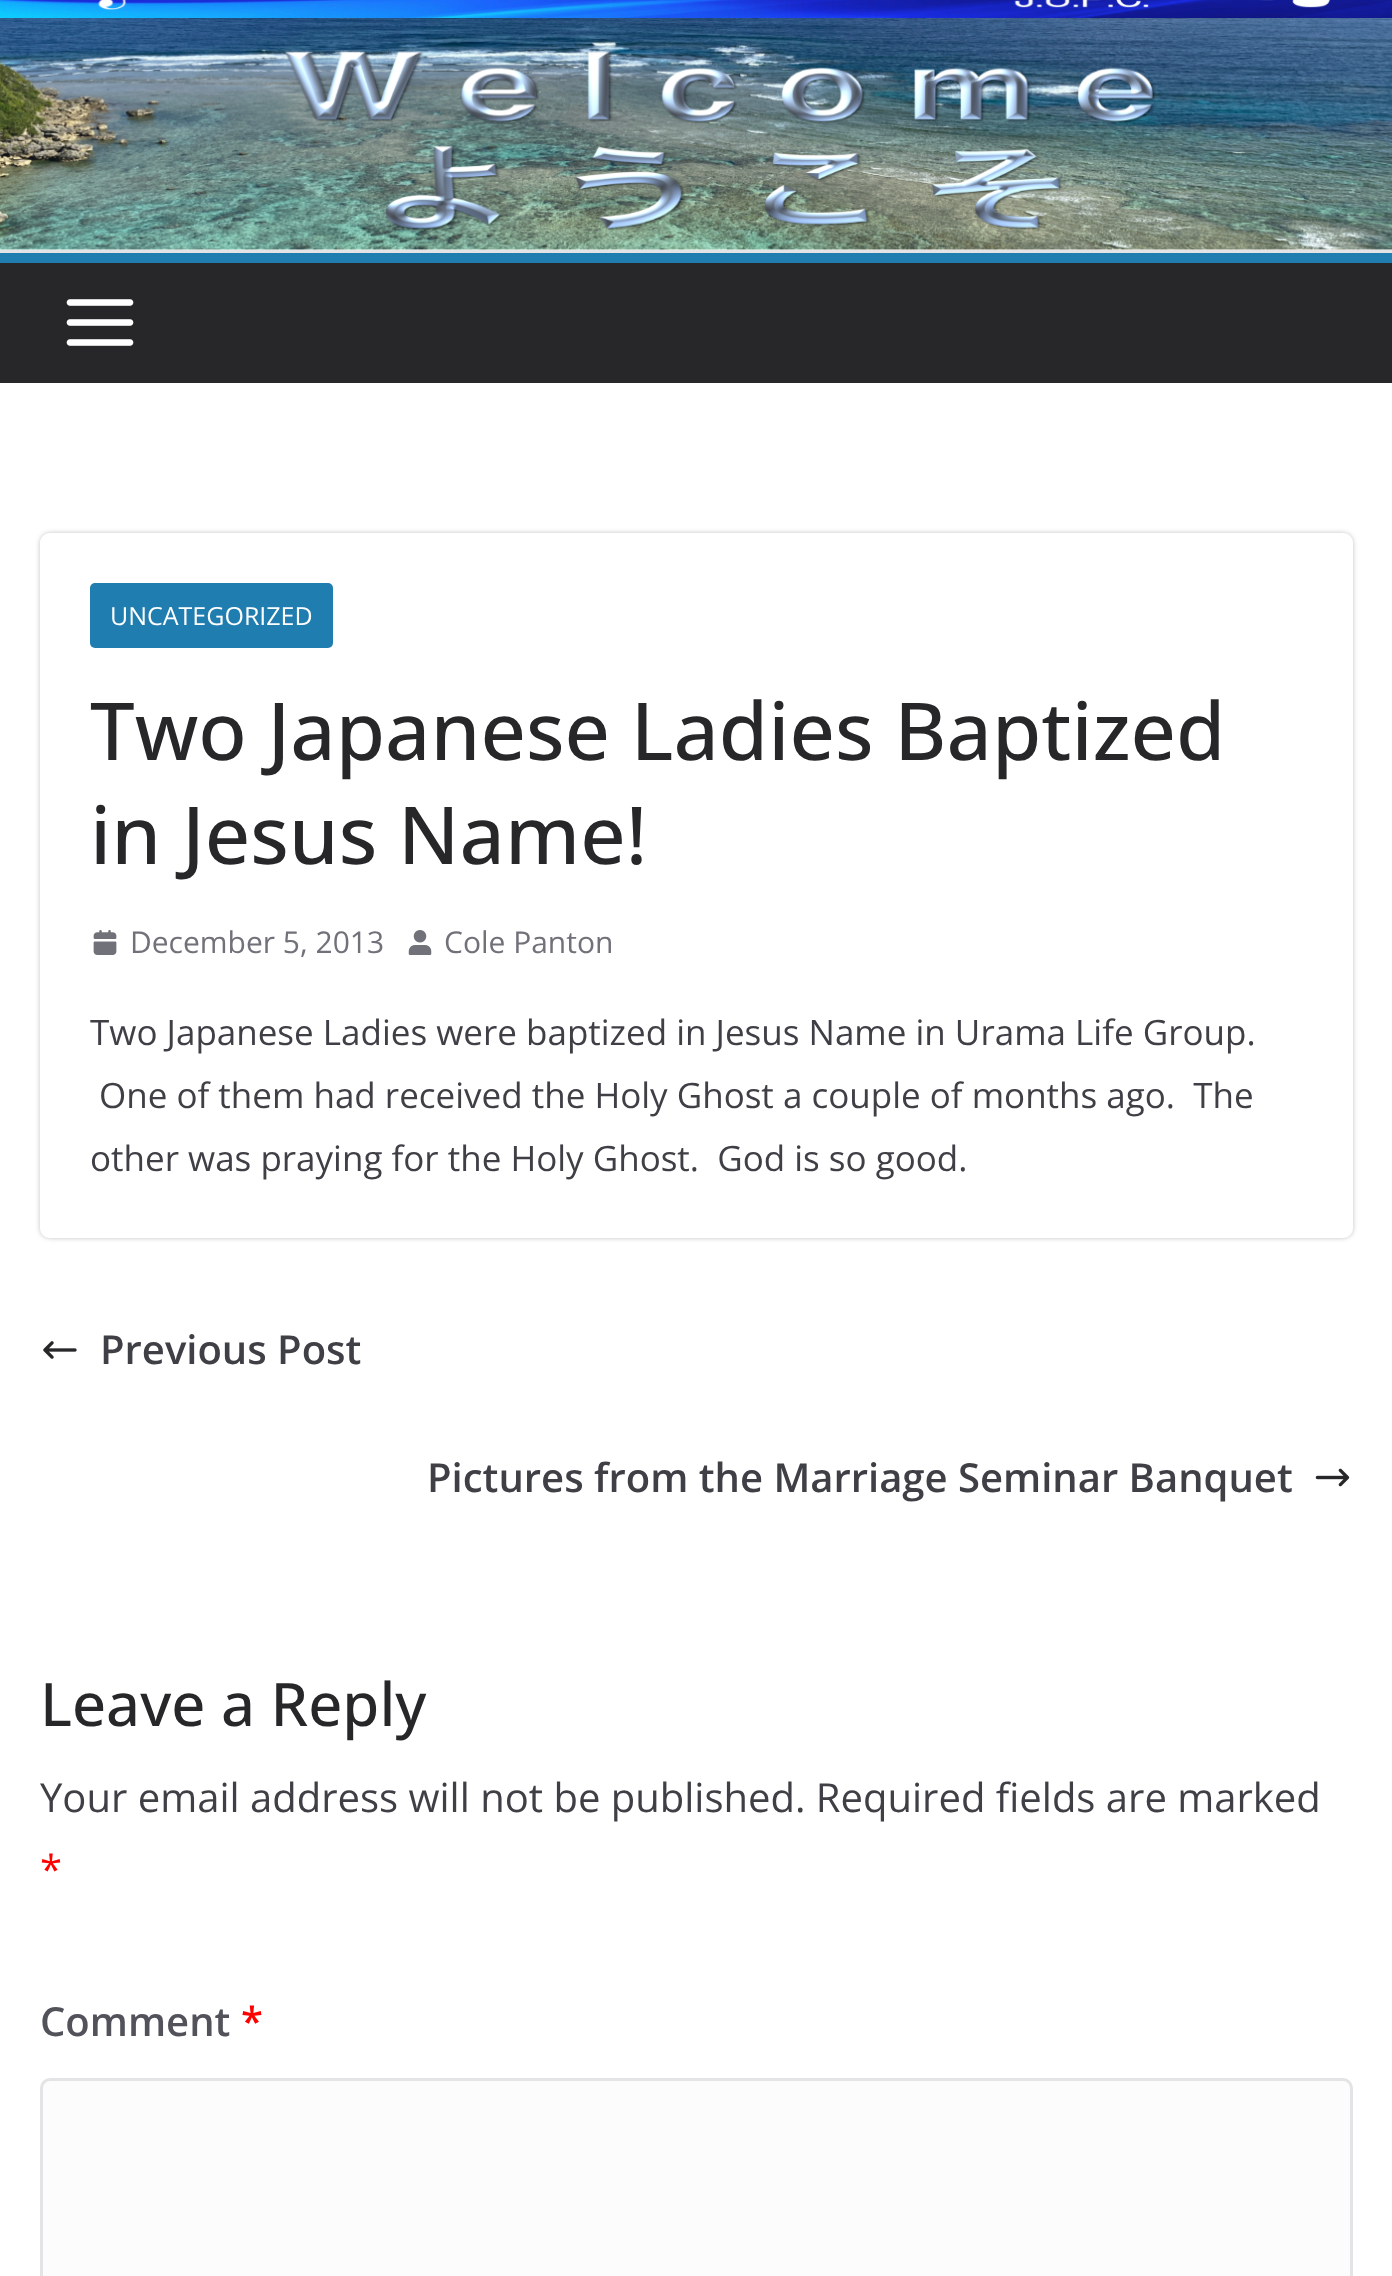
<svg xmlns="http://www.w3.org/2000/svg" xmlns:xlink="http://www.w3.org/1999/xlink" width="1392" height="2276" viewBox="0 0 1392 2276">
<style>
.cls-1{font:25px Open Sans;fill:#ffffff}
.cls-2{font:500 80px Open Sans;fill:#27272a}
.cls-3{font:30px Open Sans;fill:#71717a}
.cls-4{font:35px Open Sans;fill:#3f3f46}
.cls-5{font:600 40px Open Sans;fill:#3f3f46}
.cls-6{font:500 60px Open Sans;fill:#27272a}
.cls-7{font:40px Open Sans;fill:#3f3f46}
.cls-8{font:40px Open Sans;fill:#ff0000}
.cls-9{font:600 40px Open Sans;fill:#52525b}
.cls-10{font:600 40px Open Sans;fill:#ff0000}
</style>
<defs>
<clipPath id="clip1"><path d="M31 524H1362V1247H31ZM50 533H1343C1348.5 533 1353 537.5 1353 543V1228C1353 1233.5 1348.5 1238 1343 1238H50C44.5 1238 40 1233.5 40 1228V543C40 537.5 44.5 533 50 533Z" clip-rule="evenodd"/></clipPath>
</defs>
<rect width="100%" height="100%" fill="#ffffff"/>
<image xlink:href="image0.png" x="0" y="0" width="1392" height="250"/>
<rect fill="#e4e4e7" x="0" y="250" width="1392" height="3"/>
<rect fill="#27272a" x="0" y="263" width="1392" height="120"/>
<rect fill="#207daf" x="0" y="253" width="1392" height="10"/>
<image xlink:href="image1.png" x="66" y="299" width="68" height="47"/>
<g clip-path="url(#clip1)">
<rect fill="#000000" fill-opacity="0.24" filter="blur(2.5px)" x="40" y="533" width="1313" height="705" rx="10"/>
</g>
<rect fill="#207daf" x="90" y="583" width="243" height="65" rx="5"/>
<image xlink:href="image2.png" x="93" y="930" width="24" height="25"/>
<image xlink:href="image3.png" x="408" y="930" width="24" height="25"/>
<image xlink:href="image4.png" x="43" y="1341" width="34" height="18"/>
<image xlink:href="image5.png" x="1315" y="1468" width="35" height="19"/>
<rect fill="#fcfcfc" stroke="#e4e4e7" stroke-width="3" x="41.5" y="2079.5" width="1310" height="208" rx="8.5"/>
<text class="cls-1" x="110" y="625">UNCATEGORIZED</text>
<text class="cls-2"><tspan x="90" y="760">Two Japanese Ladies Baptized</tspan><tspan x="90" y="864">in Jesus Name!</tspan></text>
<text class="cls-3" x="130" y="953">December 5, 2013</text>
<text class="cls-3" x="444" y="953">Cole Panton</text>
<text class="cls-4" x="90" y="1045">Two Japanese Ladies were baptized in Jesus Name in Urama Life Group.</text>
<text class="cls-4" xml:space="preserve" x="99" y="1108">One of them had received the Holy Ghost a couple of months ago.  The</text>
<text class="cls-4" xml:space="preserve" x="90" y="1171">other was praying for the Holy Ghost.  God is so good.</text>
<text class="cls-5" x="100" y="1364">Previous Post</text>
<text class="cls-5" x="427" y="1492">Pictures from the Marriage Seminar Banquet</text>
<text class="cls-6" x="40" y="1726">Leave a Reply</text>
<text class="cls-7" x="40" y="1812">Your email address will not be published. Required fields are marked</text>
<text class="cls-8" x="40" y="1884">*</text>
<text class="cls-9" x="40" y="2036">Comment</text>
<text class="cls-10" x="241" y="2036">*</text>
</svg>
